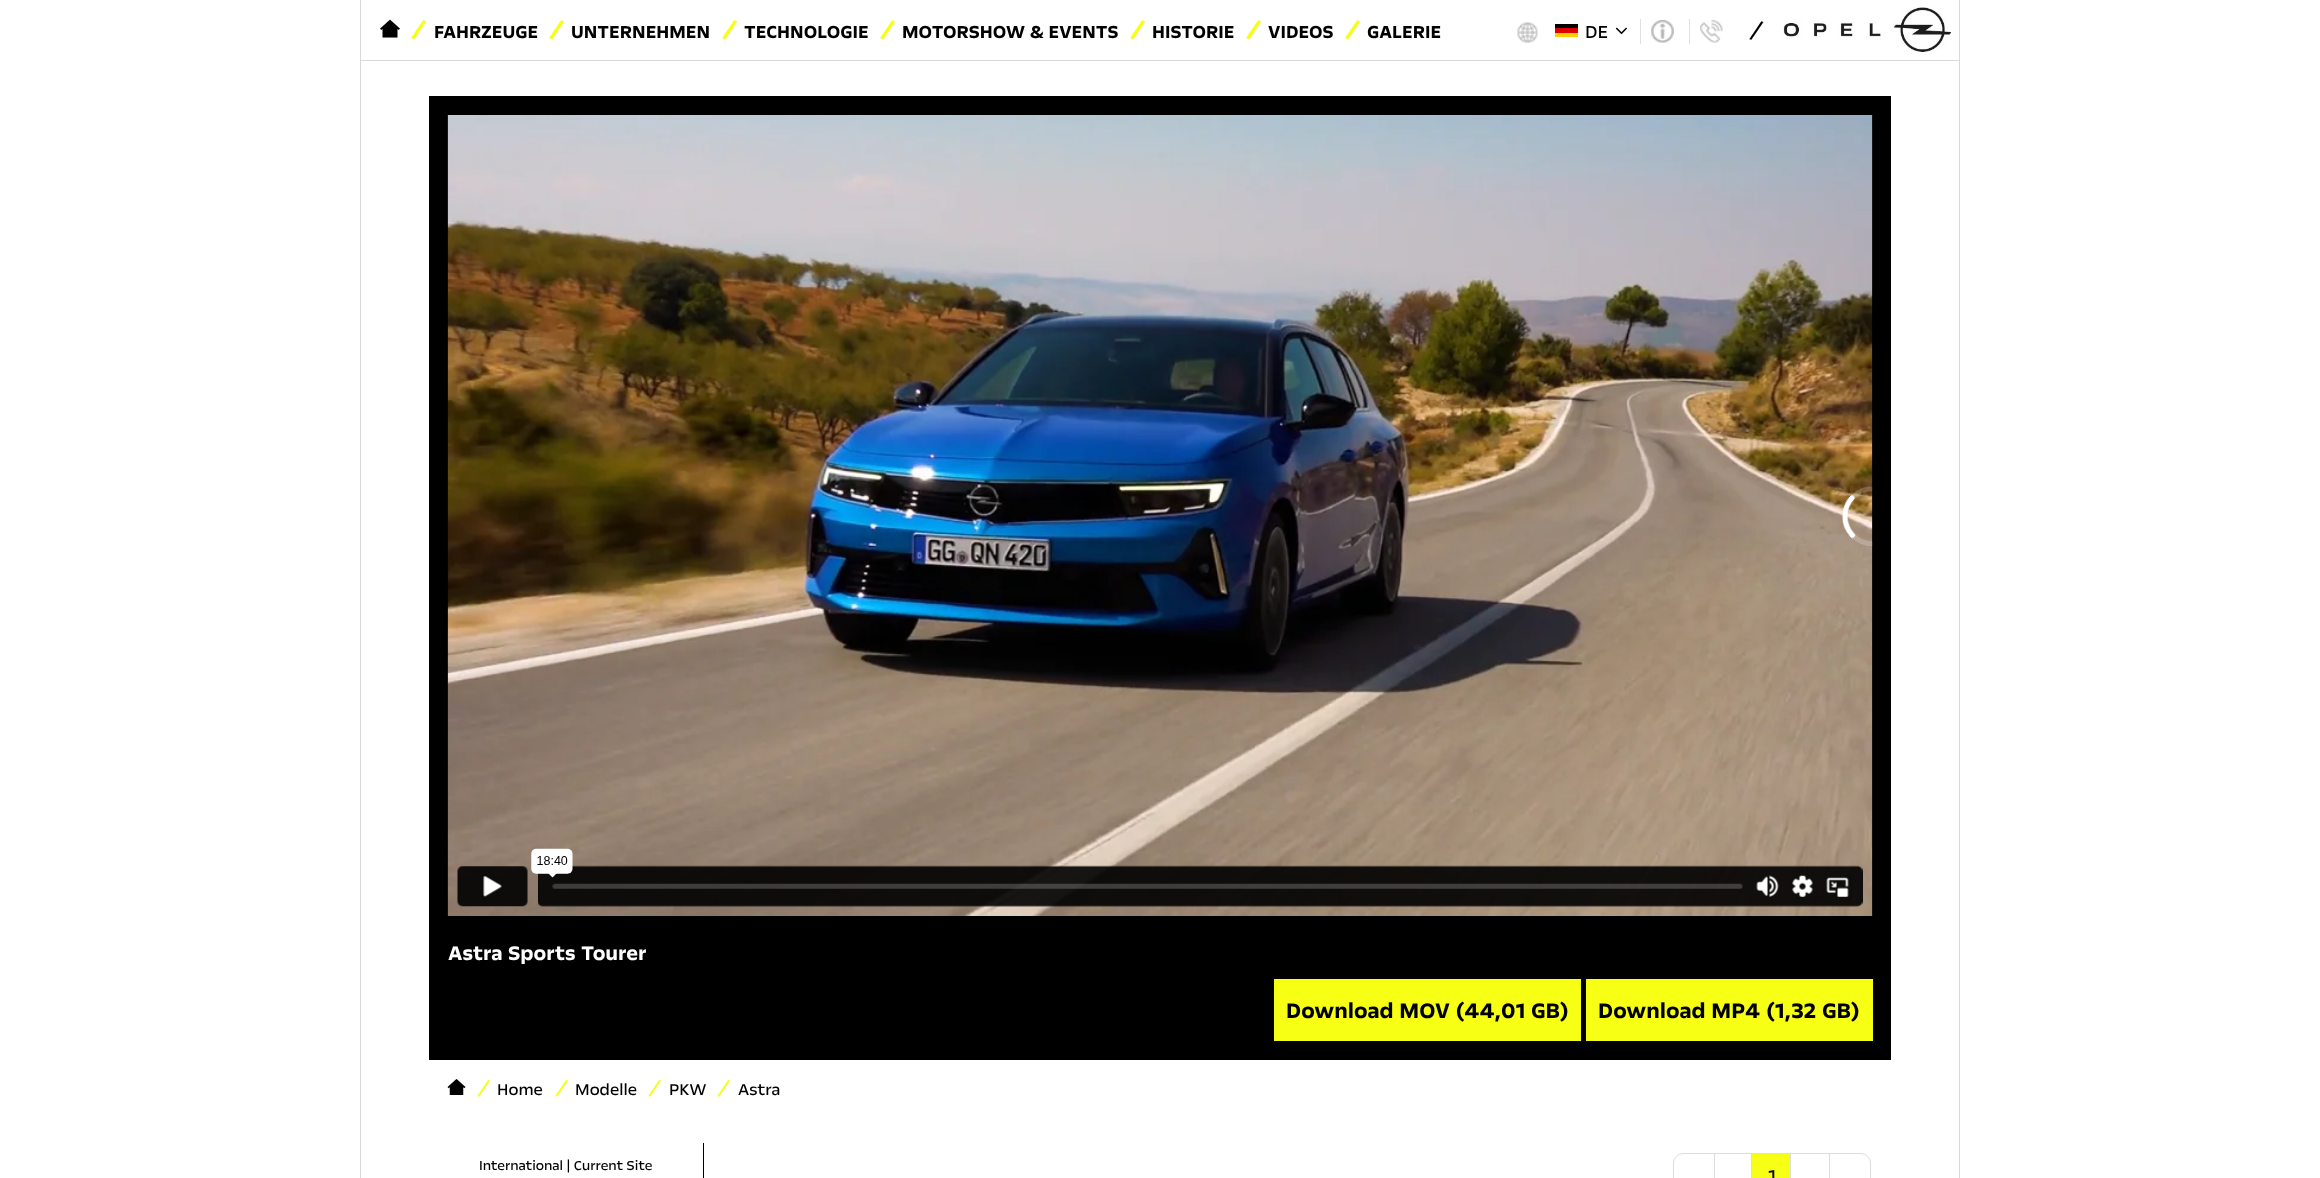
<svg xmlns="http://www.w3.org/2000/svg" xmlns:xlink="http://www.w3.org/1999/xlink" width="2320" height="1178" viewBox="0 0 2320 1178">
<style>
.cls-1{font:bold 28px 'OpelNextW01';fill:#f7ff14}
.cls-2{font:bold 20px 'OpelNextW01';fill:#000000}
.cls-3{font:20px 'OpelNextW01';fill:#000000}
.cls-4{font:28px 'OpelNextW01';fill:#000000}
.cls-5{font:bold 22.5px 'OpelNextW01';fill:#ffffff}
.cls-6{font:bold 24px 'OpelNextW01';fill:#000000}
.cls-7{font:25px 'OpelNextW01';fill:#f7ff14}
.cls-8{font:18px 'OpelNextW01';fill:#000000}
.cls-9{font:14.9px 'OpelNextW01';fill:#000000}
</style>
<rect width="100%" height="100%" fill="#ffffff"/>
<rect fill="#d8d8d8" x="1959" y="0" width="1" height="1178"/>
<rect fill="#d8d8d8" x="360" y="0" width="1" height="1178"/>
<rect fill="#d8d8d8" x="361" y="60" width="1598" height="1"/>
<image xlink:href="image0.png" x="380" y="19" width="20" height="19"/>
<image xlink:href="image1.png" x="1517" y="22" width="21" height="21"/>
<rect fill="#000000" x="1555" y="24" width="23" height="4"/>
<rect fill="#dd0000" x="1555" y="28" width="23" height="5"/>
<rect fill="#ffce00" x="1555" y="33" width="23" height="4"/>
<image xlink:href="image2.png" x="1615" y="27" width="12" height="8"/>
<image xlink:href="image3.png" x="1651" y="19" width="23" height="24"/>
<rect fill="#e0e0e0" x="1640" y="19" width="1" height="25"/>
<image xlink:href="image4.png" x="1700" y="19" width="23" height="24"/>
<rect fill="#e0e0e0" x="1689" y="19" width="1" height="25"/>
<image xlink:href="image5.png" x="1783" y="7" width="169" height="47"/>
<rect fill="#000000" x="429" y="96" width="1462" height="964"/>
<image xlink:href="image6.png" x="447" y="115" width="1426" height="801"/>
<rect fill="#f7ff14" x="1274" y="979" width="307" height="62"/>
<rect fill="#f7ff14" x="1586" y="979" width="287" height="62"/>
<image xlink:href="image7.png" x="447" y="1079" width="19" height="16"/>
<rect fill="#000000" x="703" y="1143" width="1" height="35"/>
<path fill="none" stroke="#dddddd" d="M1683 1153.5H1714.5V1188.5H1683C1678 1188.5 1673.5 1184 1673.5 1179V1163C1673.5 1158 1678 1153.5 1683 1153.5Z"/>
<rect fill="none" stroke="#dddddd" x="1714.5" y="1153.5" width="38" height="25"/>
<rect fill="none" stroke="#dddddd" x="1790.5" y="1153.5" width="39" height="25"/>
<rect fill="#f7ff14" stroke="#dddddd" x="1751.5" y="1153.5" width="39" height="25"/>
<path fill="#ffffff" stroke="#dddddd" d="M1829.5 1153.5H1861C1866 1153.5 1870.5 1158 1870.5 1163V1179C1870.5 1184 1866 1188.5 1861 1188.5H1829.5Z"/>
<text class="cls-1" x="412" y="36" transform="rotate(18 412 36)">/</text>
<text class="cls-2" x="434" y="38">FAHRZEUGE</text>
<text class="cls-1" x="550" y="36" transform="rotate(18 550 36)">/</text>
<text class="cls-2" x="571" y="38">UNTERNEHMEN</text>
<text class="cls-1" x="723" y="36" transform="rotate(18 723 36)">/</text>
<text class="cls-2" x="744" y="38">TECHNOLOGIE</text>
<text class="cls-1" x="881" y="36" transform="rotate(18 881 36)">/</text>
<text class="cls-2" x="902" y="38">MOTORSHOW &amp; EVENTS</text>
<text class="cls-1" x="1131" y="36" transform="rotate(18 1131 36)">/</text>
<text class="cls-2" x="1152" y="38">HISTORIE</text>
<text class="cls-1" x="1247" y="36" transform="rotate(18 1247 36)">/</text>
<text class="cls-2" x="1268" y="38">VIDEOS</text>
<text class="cls-1" x="1346" y="36" transform="rotate(18 1346 36)">/</text>
<text class="cls-2" x="1367" y="38">GALERIE</text>
<text class="cls-3" x="1585" y="38">DE</text>
<text class="cls-4" x="1750" y="37" transform="rotate(18 1750 37)">/</text>
<text class="cls-5" x="448" y="960">Astra Sports Tourer</text>
<text class="cls-6" x="1286" y="1018">Download MOV (44,01 GB)</text>
<text class="cls-6" x="1598" y="1018">Download MP4 (1,32 GB)</text>
<text class="cls-7" x="478" y="1094" transform="rotate(18 478 1094)">/</text>
<text class="cls-8" x="497" y="1095">Home</text>
<text class="cls-7" x="556" y="1094" transform="rotate(18 556 1094)">/</text>
<text class="cls-8" x="575" y="1095">Modelle</text>
<text class="cls-7" x="649" y="1094" transform="rotate(18 649 1094)">/</text>
<text class="cls-8" x="669" y="1095">PKW</text>
<text class="cls-7" x="718" y="1094" transform="rotate(18 718 1094)">/</text>
<text class="cls-8" x="738" y="1095">Astra</text>
<text class="cls-9" x="479" y="1170">International | Current Site</text>
<text class="cls-3" x="1768" y="1182">1</text>
</svg>
